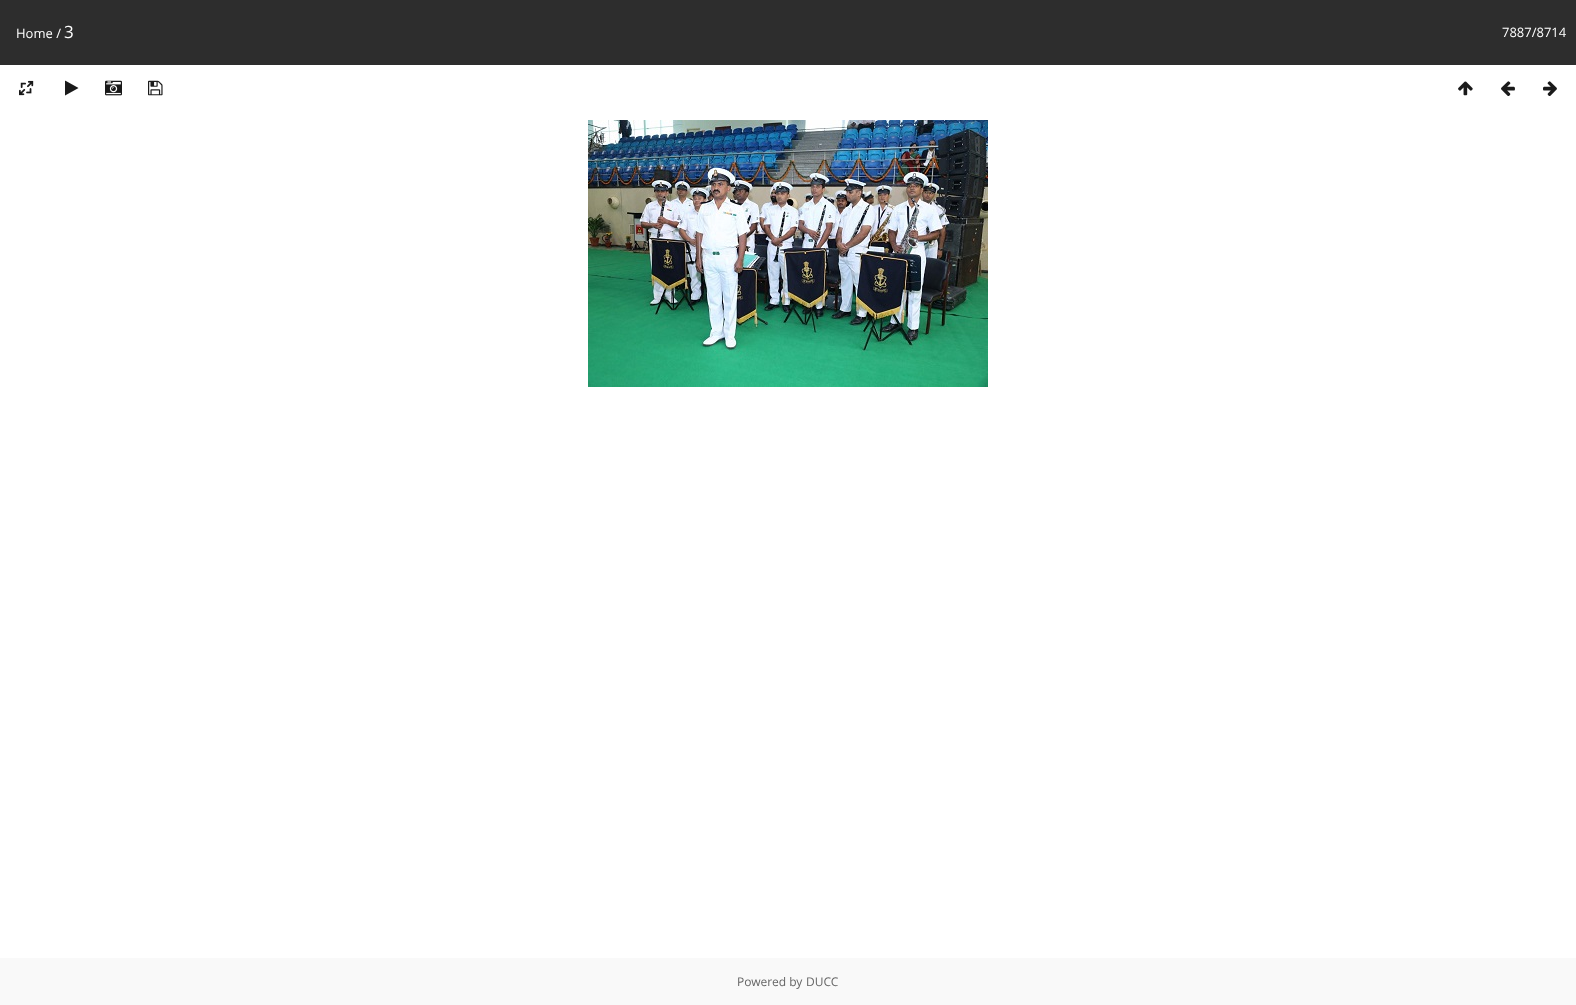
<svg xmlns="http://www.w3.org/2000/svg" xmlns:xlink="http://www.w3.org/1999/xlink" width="1576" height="1005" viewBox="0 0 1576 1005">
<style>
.cls-1{font:13px Open Sans;fill:#ffffff}
.cls-2{font:17px Open Sans;fill:#ffffff}
.cls-3{font:17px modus;fill:#1a1a1a}
.cls-4{font:12px Open Sans;fill:#666666}
</style>
<rect width="100%" height="100%" fill="#ffffff"/>
<rect fill="#2d2d2d" x="0" y="0" width="1576" height="65"/>
<image xlink:href="image0.png" x="19" y="80" width="15" height="16"/>
<image xlink:href="image1.png" x="105" y="80" width="17" height="16"/>
<image xlink:href="image2.png" x="588" y="120" width="400" height="267"/>
<rect fill="#f9f9f9" x="0" y="958" width="1576" height="47"/>
<text class="cls-1" x="16" y="38">Home /</text>
<text class="cls-2" x="64" y="38">3</text>
<text class="cls-1" x="1502" y="37">7887/8714</text>
<text class="cls-3" x="65" y="94">▶</text>
<text class="cls-3" x="148" y="94">💾</text>
<text class="cls-3" x="1458" y="94">↑</text>
<text class="cls-3" x="1501" y="94">←</text>
<text class="cls-3" x="1543" y="94">→</text>
<text class="cls-4" x="737" y="986">Powered by</text>
<text class="cls-4" x="806" y="986">DUCC</text>
</svg>
